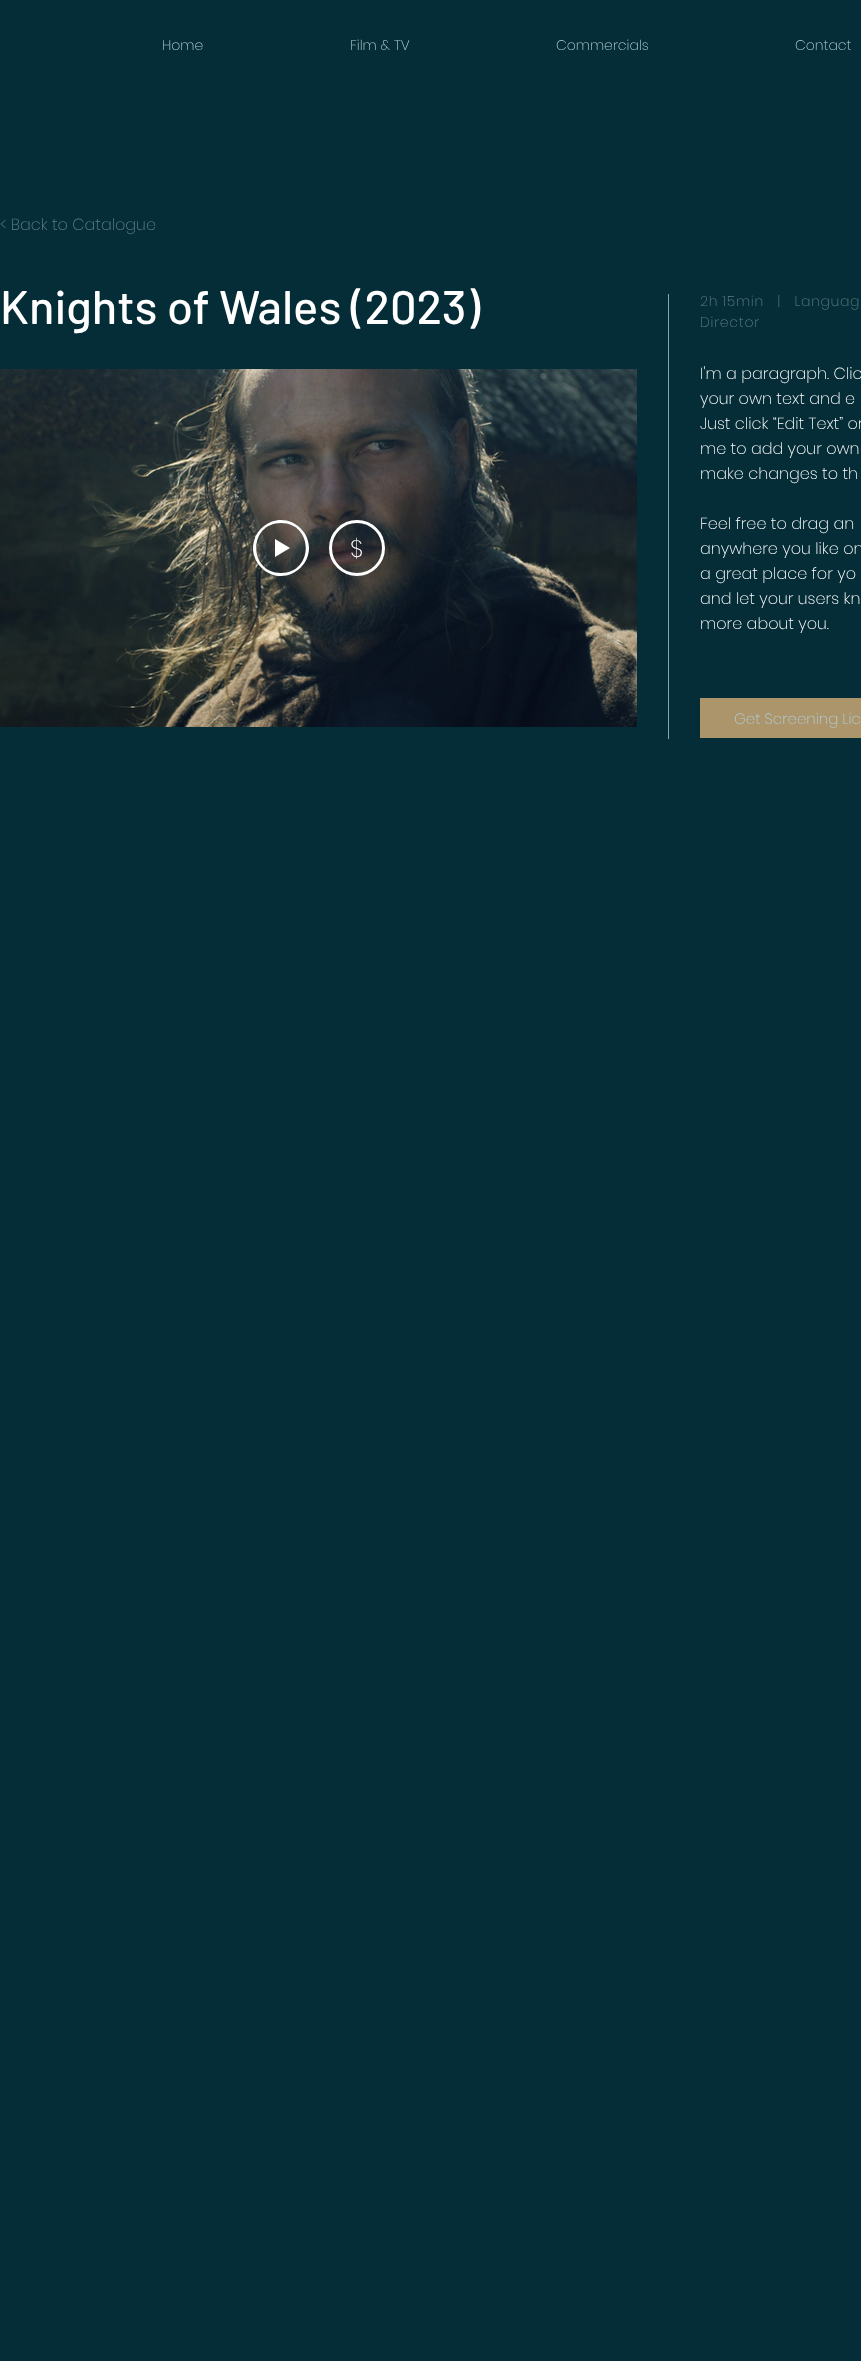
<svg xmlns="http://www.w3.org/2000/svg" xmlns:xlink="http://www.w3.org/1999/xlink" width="861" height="2361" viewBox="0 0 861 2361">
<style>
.cls-1{font:200 14px Poppins;fill:#b0cfd7}
.cls-2{font:200 16px Poppins;fill:#5e7f87}
.cls-3{font:500 47px Barlow;fill:#ffffff}
.cls-4{font:200 14px Poppins;letter-spacing:0.7px;fill:#5e7f87}
.cls-5{font:200 24px Poppins;fill:#ffffff}
.cls-6{font:200 16px Poppins;fill:#ffffff}
.cls-7{font:200 15px Poppins;fill:#b0cfd7}
</style>
<rect width="100%" height="100%" fill="#052d37"/>
<rect fill="#87a7af" x="668" y="294" width="1" height="445"/>
<image xlink:href="image0.png" x="0" y="369" width="637" height="358"/>
<path fill="#ffffff" fill-rule="evenodd" d="M281 573C314 573 314 523 281 523C248 523 248 573 281 573ZM281 576C266 576 253 563 253 548C253 533 266 520 281 520C296 520 309 533 309 548C309 563 296 576 281 576Z"/>
<path fill="#ffffff" fill-rule="evenodd" d="M290 548L275 557V539Z"/>
<circle fill="none" stroke="#ffffff" stroke-width="3" cx="357" cy="548" r="26.5"/>
<rect fill="#ac946b" x="700" y="698" width="161" height="40"/>
<text class="cls-1" x="162" y="50">Home</text>
<text class="cls-1" x="350" y="50">Film &amp; TV</text>
<text class="cls-1" x="556" y="50">Commercials</text>
<text class="cls-1" x="795" y="50">Contact</text>
<text class="cls-2" x="0" y="230">&lt; Back to Catalogue</text>
<text class="cls-3" x="0" y="324">Knights of Wales (2023)</text>
<text class="cls-4" xml:space="preserve"><tspan x="700" y="306">2h 15min   |   Languag</tspan><tspan x="700" y="327">Director</tspan></text>
<text class="cls-5" x="350" y="557">$</text>
<text class="cls-6"><tspan x="700" y="379">I'm a paragraph. Clic</tspan><tspan x="700" y="404">your own text and e</tspan><tspan x="700" y="429">Just click “Edit Text” or</tspan><tspan x="700" y="454">me to add your own</tspan><tspan x="700" y="479">make changes to th</tspan></text>
<text class="cls-6"><tspan x="700" y="529">Feel free to drag an</tspan><tspan x="700" y="554">anywhere you like on</tspan><tspan x="700" y="579">a great place for yo</tspan><tspan x="700" y="604">and let your users kn</tspan><tspan x="700" y="629">more about you.</tspan></text>
<text class="cls-7" x="734" y="724">Get Screening Lic</text>
</svg>
